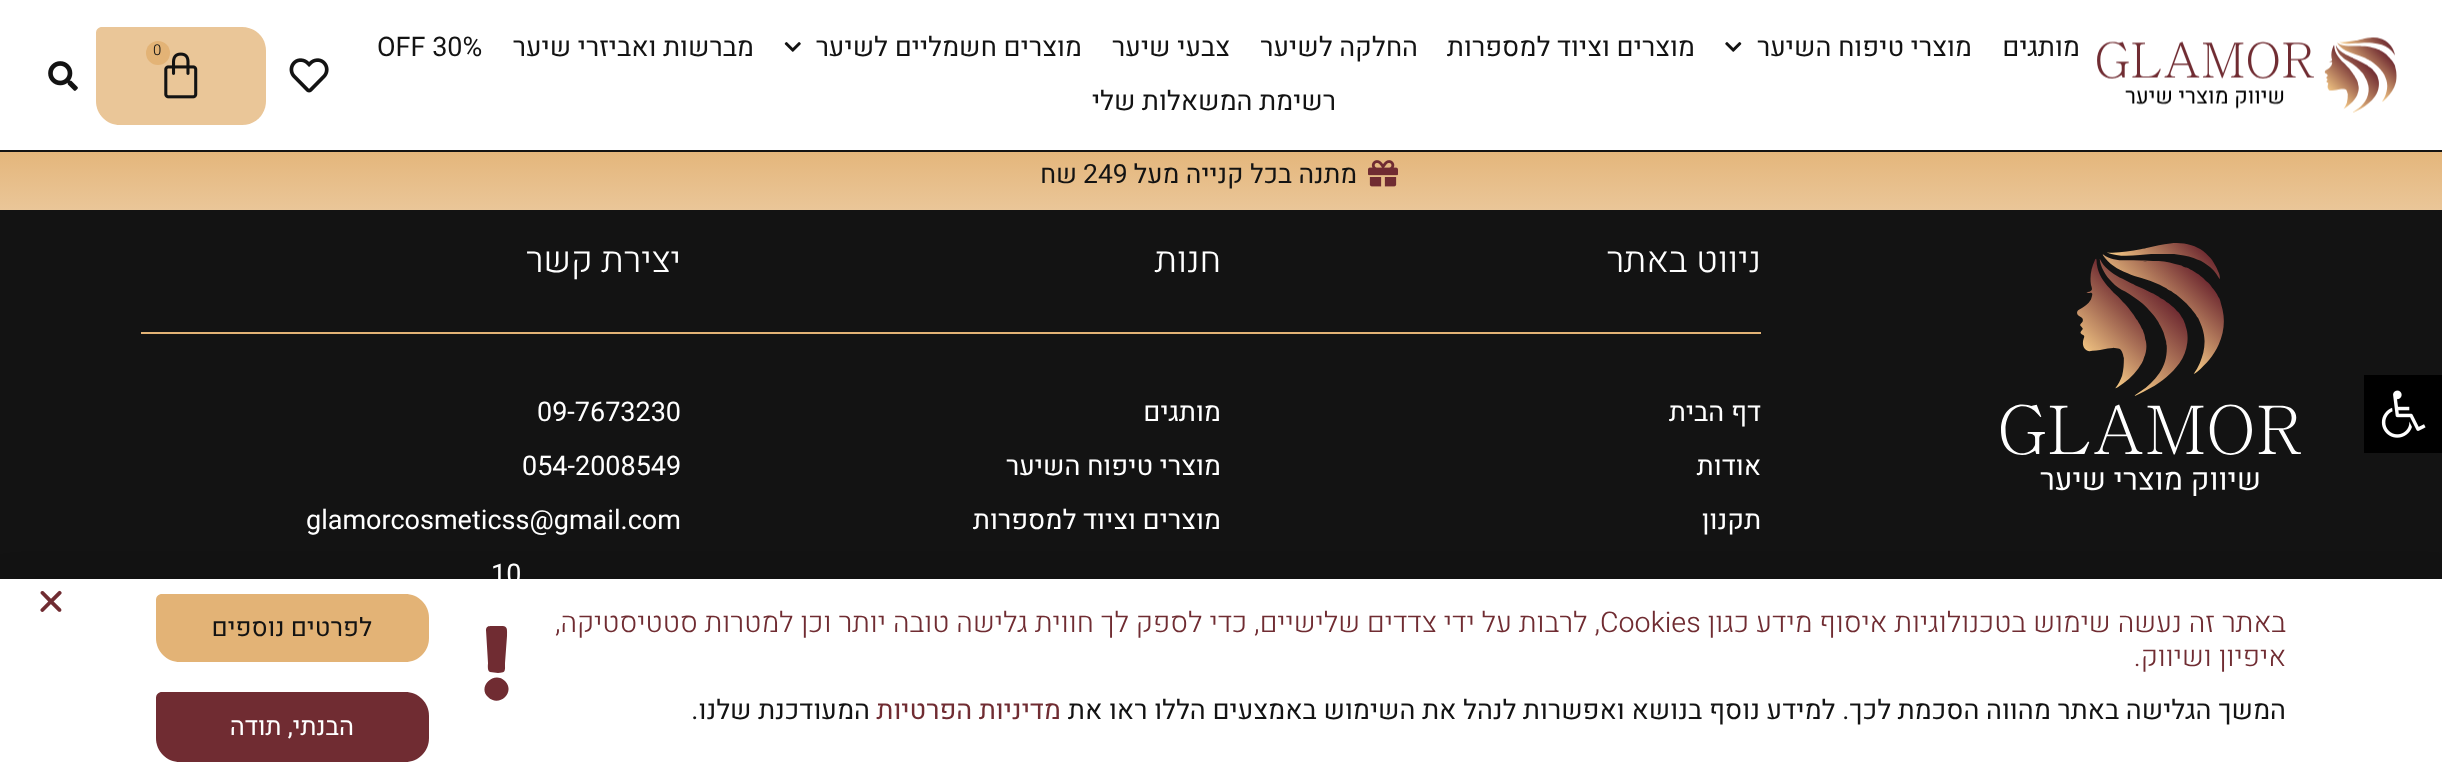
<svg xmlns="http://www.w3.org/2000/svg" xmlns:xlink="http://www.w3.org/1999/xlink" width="2442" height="776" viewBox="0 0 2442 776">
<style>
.cls-1{font:27px Heebo;direction:rtl;fill:#131313}
.cls-2{font:27px Heebo;fill:#131313}
.cls-3{font:300 15px Heebo;fill:#131313}
.cls-4{font:26.5px Heebo;direction:rtl;fill:#131313}
.cls-5{font:26.5px Heebo;fill:#131313}
.cls-6{font:300 36px Heebo;direction:rtl;fill:#ffffff}
.cls-7{font:27px Heebo;direction:rtl;fill:#ffffff}
.cls-8{font:27px Heebo;fill:#ffffff}
.cls-9{font:300 28.5px Heebo;direction:rtl;fill:#702c32}
.cls-10{font:300 28.5px Heebo;fill:#702c32}
.cls-11{font:27px Heebo;direction:rtl;fill:#702c32}
.cls-12{font:25.5px Heebo;direction:rtl;fill:#131313}
.cls-13{font:25.5px Heebo;direction:rtl;fill:#ffffff}
</style>
<defs>
<linearGradient id="g1" gradientUnits="userSpaceOnUse" x1="1221" y1="141" x2="1221" y2="210"><stop offset="0" stop-color="#e3b376"/><stop offset="1" stop-color="#eac698"/></linearGradient>
</defs>
<rect width="100%" height="100%" fill="#131313"/>
<rect fill="#ffffff" x="0" y="0" width="2442" height="150"/>
<image xlink:href="image0.png" x="2097" y="37" width="300" height="76"/>
<image xlink:href="image1.png" x="1725" y="42" width="17" height="10"/>
<image xlink:href="image2.png" x="784" y="42" width="17" height="10"/>
<path fill="#eac698" d="M102 27H242C255.5 27 266 37.5 266 51V101C266 114.5 255.5 125 242 125H120C106.5 125 96 114.5 96 101V33C96 29.5 98.5 27 102 27Z"/>
<image xlink:href="image3.png" x="164" y="52" width="34" height="47"/>
<circle fill="#e3b376" cx="158" cy="53" r="12"/>
<image xlink:href="image4.png" x="289" y="58" width="40" height="35"/>
<image xlink:href="image5.png" x="48" y="61" width="30" height="30"/>
<rect fill="url(#g1)" x="0" y="152" width="2442" height="58"/>
<image xlink:href="image6.png" x="1368" y="160" width="30" height="27"/>
<rect fill="#000000" x="2364" y="375" width="78" height="78"/>
<image xlink:href="image7.png" x="2381" y="390" width="45" height="48"/>
<image xlink:href="image8.png" x="2001" y="243" width="300" height="253"/>
<rect fill="#e3b376" x="141" y="332" width="1620" height="2"/>
<rect fill="#000000" fill-opacity="0.2" filter="blur(17px)" x="-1" y="587" width="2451" height="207"/>
<rect fill="#ffffff" x="0" y="579" width="2442" height="197"/>
<image xlink:href="image9.png" x="40" y="590" width="22" height="22"/>
<path fill="#702c32" d="M505 681C516 692 499 708 488 697C477 687 494 670 505 681ZM486 630C486 625 491 626 494 626H501C508 626 507 629 507 636L505 663C505 671 506 673 498 673L490 672C487 671 488 665 488 663Z"/>
<path fill="#e3b376" d="M162 594H405C418.5 594 429 604.5 429 618V638C429 651.5 418.5 662 405 662H180C166.5 662 156 651.5 156 638V600C156 596.5 158.5 594 162 594Z"/>
<path fill="#702c32" d="M162 692H405C418.5 692 429 702.5 429 716V738C429 751.5 418.5 762 405 762H180C166.5 762 156 751.5 156 738V698C156 694.5 158.5 692 162 692Z"/>
<text class="cls-1" x="2080" y="56">מותגים</text>
<text class="cls-1" x="1972" y="56">מוצרי טיפוח השיער</text>
<text class="cls-1" x="1695" y="56">מוצרים וציוד למספרות</text>
<text class="cls-1" x="1418" y="56">החלקה לשיער</text>
<text class="cls-1" x="1230" y="56">צבעי שיער</text>
<text class="cls-1" x="1082" y="56">מוצרים חשמליים לשיער</text>
<text class="cls-1" x="754" y="56">מברשות ואביזרי שיער</text>
<text class="cls-2" x="377" y="56">OFF 30%</text>
<text class="cls-1" x="1336" y="110">רשימת המשאלות שלי</text>
<text class="cls-3" x="153" y="55">0</text>
<text class="cls-4" x="1357" y="183">מתנה בכל קנייה מעל</text>
<text class="cls-5" x="1083" y="183">249</text>
<text class="cls-4" x="1077" y="183">שח</text>
<text class="cls-6" x="1761" y="272">ניווט באתר</text>
<text class="cls-7" x="1761" y="421">דף הבית</text>
<text class="cls-7" x="1761" y="475">אודות</text>
<text class="cls-7" x="1761" y="529">תקנון</text>
<text class="cls-6" x="1221" y="272">חנות</text>
<text class="cls-7" x="1221" y="421">מותגים</text>
<text class="cls-7" x="1221" y="475">מוצרי טיפוח השיער</text>
<text class="cls-7" x="1221" y="529">מוצרים וציוד למספרות</text>
<text class="cls-6" x="681" y="272">יצירת קשר</text>
<text class="cls-8" x="537" y="421">09-7673230</text>
<text class="cls-8" x="522" y="475">054-2008549</text>
<text class="cls-8" x="306" y="529">glamorcosmeticss@gmail.com</text>
<text class="cls-8" x="491" y="583">10</text>
<text class="cls-9" x="2286" y="632">באתר זה נעשה שימוש בטכנולוגיות איסוף מידע כגון</text>
<text class="cls-10" x="1600" y="632">Cookies</text>
<text class="cls-9" x="1600" y="632">, לרבות על ידי צדדים שלישיים, כדי לספק לך חווית גלישה טובה יותר וכן למטרות סטטיסטיקה,</text>
<text class="cls-9" x="2286" y="666">איפיון ושיווק.</text>
<text class="cls-1" x="2286" y="719">המשך הגלישה באתר מהווה הסכמת לכך. למידע נוסף בנושא ואפשרות לנהל את השימוש באמצעים הללו ראו את</text>
<text class="cls-11" x="1061" y="719">מדיניות הפרטיות</text>
<text class="cls-1" x="870" y="719">המעודכנת שלנו.</text>
<text class="cls-12" x="372" y="636">לפרטים נוספים</text>
<text class="cls-13" x="354" y="735">הבנתי, תודה</text>
</svg>
